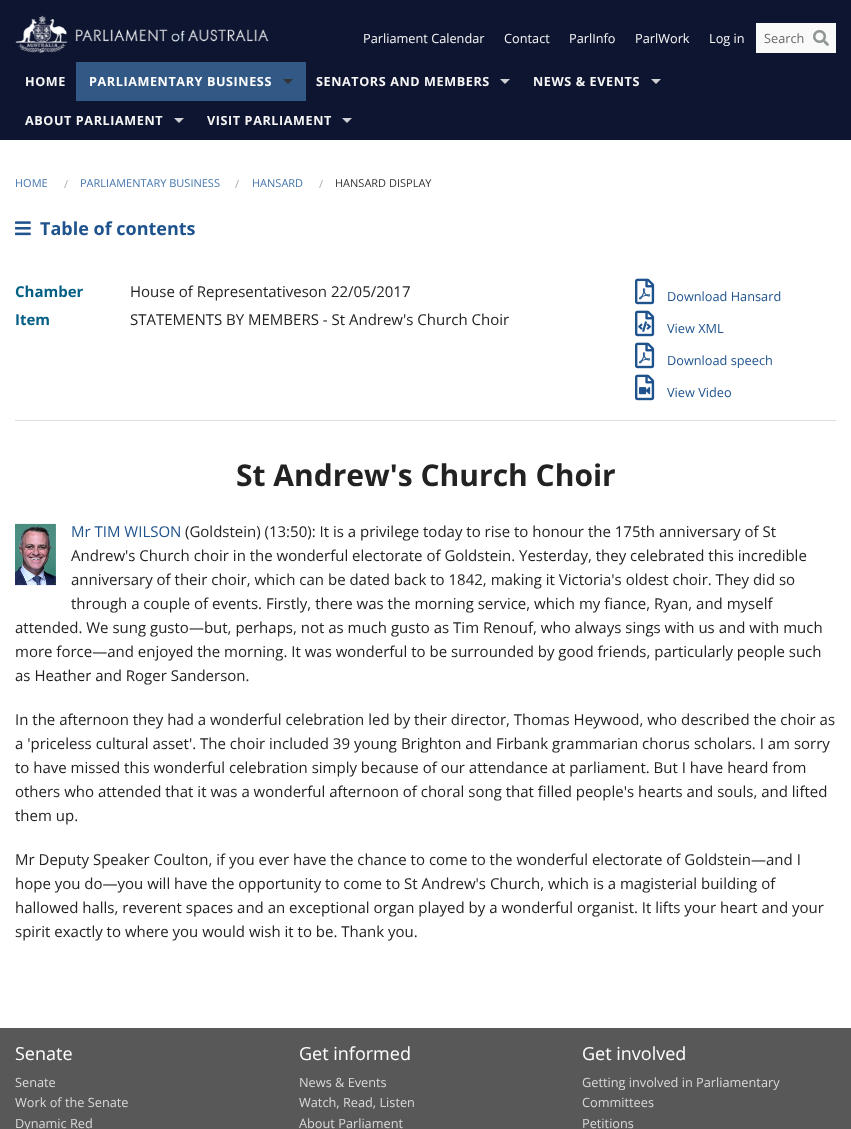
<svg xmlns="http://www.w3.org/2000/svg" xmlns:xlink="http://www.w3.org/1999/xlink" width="851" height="1129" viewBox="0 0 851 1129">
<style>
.cls-1{font:12.75px Open Sans;fill:#f6f6f6}
.cls-2{font:12.75px Open Sans;fill:#696969}
.cls-3{font:bold 12.6px Open Sans;letter-spacing:0.6px;fill:#f6f6f6}
.cls-4{font:bold 12.6px Open Sans;letter-spacing:0.6px;fill:#ffffff}
.cls-5{font:11px Open Sans;fill:#4275ae}
.cls-6{font:11px Open Sans;fill:#aaaaaa}
.cls-7{font:11px Open Sans;fill:#333333}
.cls-8{font:bold 18px Open Sans;fill:#1f538d}
.cls-9{font:bold 15px Open Sans;fill:#045f85}
.cls-10{font:15px Open Sans;fill:#222222}
.cls-11{font:12.75px Open Sans;fill:#1f538d}
.cls-12{font:bold 30px Open Sans;fill:#222222}
.cls-13{font:15px Open Sans;fill:#1f538d}
.cls-14{font:18px Open Sans;fill:#ffffff}
.cls-15{font:12.75px Open Sans;fill:#d9d9d9}
</style>
<rect width="100%" height="100%" fill="#ffffff"/>
<rect fill="#0e1531" x="0" y="0" width="851" height="140"/>
<image xlink:href="image0.png" x="15" y="15" width="254" height="38"/>
<rect fill="#f9f9f9" x="756" y="23" width="80" height="30"/>
<image xlink:href="image1.png" x="813" y="30" width="16" height="16"/>
<rect fill="#325986" x="76" y="62" width="230" height="39"/>
<path fill="#333333" d="M283 79H293L288 84Z"/>
<path fill="#cfd0d6" d="M500 79H510L505 84Z"/>
<path fill="#cfd0d6" d="M651 79H661L656 84Z"/>
<path fill="#cfd0d6" d="M174 118H184L179 123Z"/>
<path fill="#cfd0d6" d="M342 118H352L347 123Z"/>
<image xlink:href="image2.png" x="15" y="221" width="16" height="15"/>
<image xlink:href="image3.png" x="635" y="278" width="20" height="27"/>
<image xlink:href="image4.png" x="635" y="310" width="20" height="27"/>
<image xlink:href="image3.png" x="635" y="342" width="20" height="27"/>
<image xlink:href="image5.png" x="635" y="374" width="20" height="27"/>
<rect fill="#dddddd" x="15" y="420" width="821" height="1"/>
<image xlink:href="image6.png" x="15" y="523" width="41" height="63"/>
<rect fill="#585858" x="0" y="1028" width="851" height="101"/>
<text class="cls-1" x="363" y="43">Parliament Calendar</text>
<text class="cls-1" x="504" y="43">Contact</text>
<text class="cls-1" x="569" y="43">ParlInfo</text>
<text class="cls-1" x="635" y="43">ParlWork</text>
<text class="cls-1" x="709" y="43">Log in</text>
<text class="cls-2" x="764" y="43">Search</text>
<text class="cls-3" x="25" y="86">HOME</text>
<text class="cls-4" x="89" y="86">PARLIAMENTARY BUSINESS</text>
<text class="cls-3" x="316" y="86">SENATORS AND MEMBERS</text>
<text class="cls-3" x="533" y="86">NEWS &amp; EVENTS</text>
<text class="cls-3" x="25" y="125">ABOUT PARLIAMENT</text>
<text class="cls-3" x="207" y="125">VISIT PARLIAMENT</text>
<text class="cls-5" x="15" y="187">HOME</text>
<text class="cls-6" x="64" y="188">/</text>
<text class="cls-5" x="80" y="187">PARLIAMENTARY BUSINESS</text>
<text class="cls-6" x="235" y="188">/</text>
<text class="cls-5" x="252" y="187">HANSARD</text>
<text class="cls-6" x="319" y="188">/</text>
<text class="cls-7" x="335" y="187">HANSARD DISPLAY</text>
<text class="cls-8" x="40" y="235">Table of contents</text>
<text class="cls-9" x="15" y="297">Chamber</text>
<text class="cls-10" x="130" y="297">House of Representativeson 22/05/2017</text>
<text class="cls-9" x="15" y="325">Item</text>
<text class="cls-10" x="130" y="325">STATEMENTS BY MEMBERS - St Andrew's Church Choir</text>
<text class="cls-11" x="667" y="301">Download Hansard</text>
<text class="cls-11" x="667" y="333">View XML</text>
<text class="cls-11" x="667" y="365">Download speech</text>
<text class="cls-11" x="667" y="397">View Video</text>
<text class="cls-12" x="236" y="486">St Andrew's Church Choir</text>
<text class="cls-13" x="71" y="537">Mr TIM WILSON</text>
<text class="cls-10" x="185" y="537">(Goldstein) (13:50): It is a privilege today to rise to honour the 175th anniversary of St</text>
<text class="cls-10"><tspan x="71" y="561">Andrew's Church choir in the wonderful electorate of Goldstein. Yesterday, they celebrated this incredible</tspan><tspan x="71" y="585">anniversary of their choir, which can be dated back to 1842, making it Victoria's oldest choir. They did so</tspan><tspan x="71" y="609">through a couple of events. Firstly, there was the morning service, which my fiance, Ryan, and myself</tspan></text>
<text class="cls-10"><tspan x="15" y="633">attended. We sung gusto—but, perhaps, not as much gusto as Tim Renouf, who always sings with us and with much</tspan><tspan x="15" y="657">more force—and enjoyed the morning. It was wonderful to be surrounded by good friends, particularly people such</tspan><tspan x="15" y="681">as Heather and Roger Sanderson.</tspan></text>
<text class="cls-10"><tspan x="15" y="725">In the afternoon they had a wonderful celebration led by their director, Thomas Heywood, who described the choir as</tspan><tspan x="15" y="749">a 'priceless cultural asset'. The choir included 39 young Brighton and Firbank grammarian chorus scholars. I am sorry</tspan><tspan x="15" y="773">to have missed this wonderful celebration simply because of our attendance at parliament. But I have heard from</tspan><tspan x="15" y="797">others who attended that it was a wonderful afternoon of choral song that filled people's hearts and souls, and lifted</tspan><tspan x="15" y="821">them up.</tspan></text>
<text class="cls-10"><tspan x="15" y="865">Mr Deputy Speaker Coulton, if you ever have the chance to come to the wonderful electorate of Goldstein—and I</tspan><tspan x="15" y="889">hope you do—you will have the opportunity to come to St Andrew's Church, which is a magisterial building of</tspan><tspan x="15" y="913">hallowed halls, reverent spaces and an exceptional organ played by a wonderful organist. It lifts your heart and your</tspan><tspan x="15" y="937">spirit exactly to where you would wish it to be. Thank you.</tspan></text>
<text class="cls-14" x="15" y="1060">Senate</text>
<text class="cls-15"><tspan x="15" y="1087">Senate</tspan><tspan x="15" y="1107">Work of the Senate</tspan><tspan x="15" y="1128">Dynamic Red</tspan></text>
<text class="cls-14" x="299" y="1060">Get informed</text>
<text class="cls-15"><tspan x="299" y="1087">News &amp; Events</tspan><tspan x="299" y="1107">Watch, Read, Listen</tspan><tspan x="299" y="1128">About Parliament</tspan></text>
<text class="cls-14" x="582" y="1060">Get involved</text>
<text class="cls-15"><tspan x="582" y="1087">Getting involved in Parliamentary</tspan><tspan x="582" y="1107">Committees</tspan><tspan x="582" y="1128">Petitions</tspan></text>
</svg>
